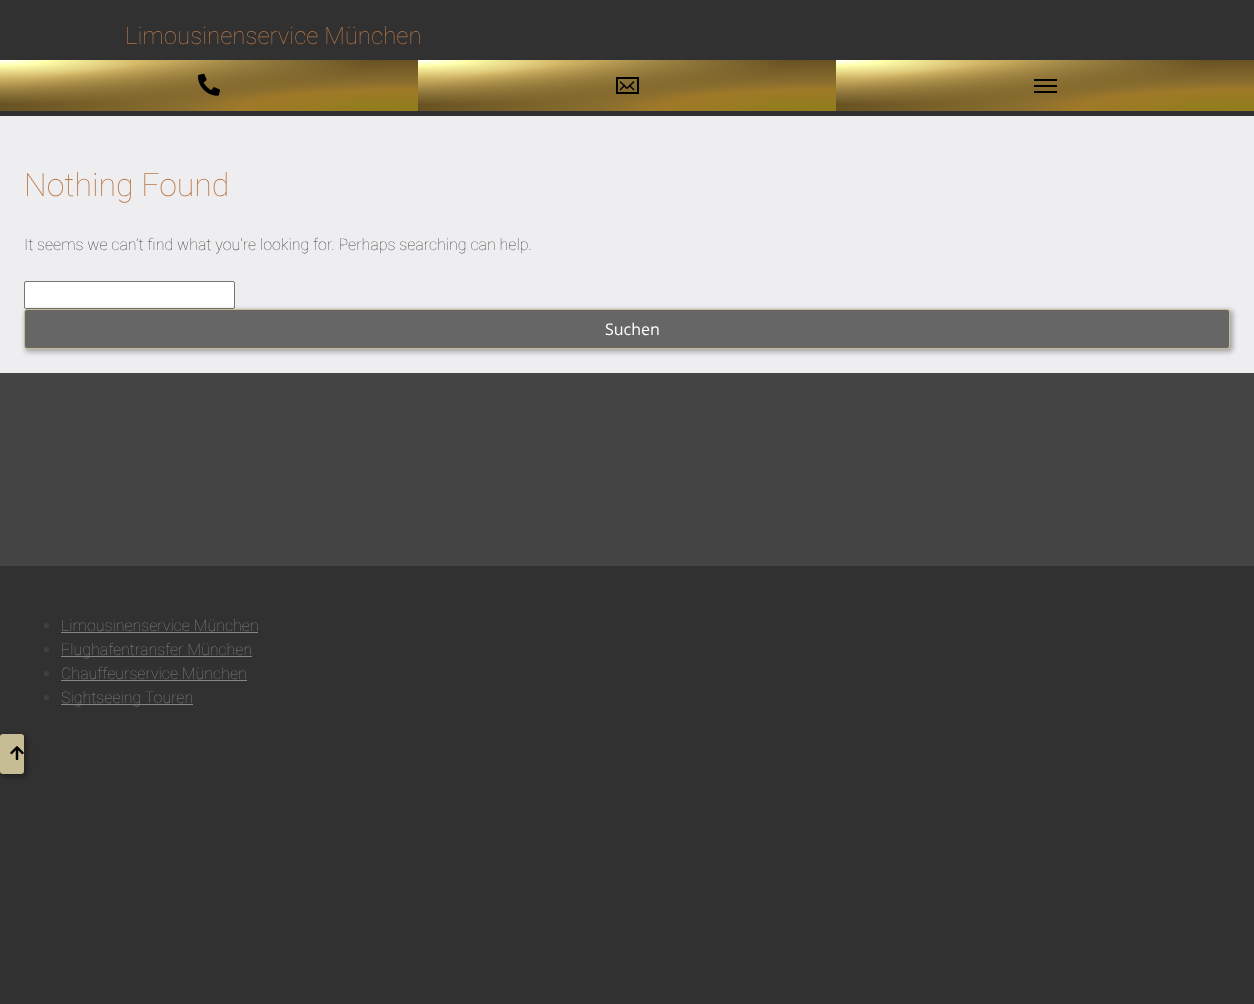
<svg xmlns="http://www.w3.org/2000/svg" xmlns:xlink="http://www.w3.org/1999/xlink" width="1254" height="1004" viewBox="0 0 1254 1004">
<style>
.cls-1{font:100 24px Roboto;fill:#b87746}
.cls-2{font:100 32px Roboto;fill:#b87746}
.cls-3{font:100 16px Roboto;fill:#404040}
.cls-4{font:16px Open Sans;fill:#ffffff}
.cls-5{font:100 16px Roboto;fill:#858586}
</style>
<defs>
<radialGradient id="g1" gradientUnits="userSpaceOnUse" cx="0" cy="0" r="1" gradientTransform="matrix(591 0 0 72 0 60)"><stop offset="0" stop-color="#ffffff"/><stop offset="0.08" stop-color="#ffffac"/><stop offset="0.25" stop-color="#d1b464"/><stop offset="0.62" stop-color="#5d4a1f"/><stop offset="1" stop-color="#5d4a1f"/></radialGradient>
<radialGradient id="g2" gradientUnits="userSpaceOnUse" cx="0" cy="0" r="1" gradientTransform="matrix(591 0 0 72 418 111)"><stop offset="0" stop-color="#927d1d"/><stop offset="0.08" stop-color="#927d1d"/><stop offset="0.3" stop-color="#9f7928"/><stop offset="0.4" stop-color="#8a6e2f"/><stop offset="0.8" stop-color="#8a6e2f" stop-opacity="0"/></radialGradient>
<radialGradient id="g3" gradientUnits="userSpaceOnUse" cx="0" cy="0" r="1" gradientTransform="matrix(591 0 0 72 418 60)"><stop offset="0" stop-color="#ffffff"/><stop offset="0.08" stop-color="#ffffac"/><stop offset="0.25" stop-color="#d1b464"/><stop offset="0.62" stop-color="#5d4a1f"/><stop offset="1" stop-color="#5d4a1f"/></radialGradient>
<radialGradient id="g4" gradientUnits="userSpaceOnUse" cx="0" cy="0" r="1" gradientTransform="matrix(591 0 0 72 836 111)"><stop offset="0" stop-color="#927d1d"/><stop offset="0.08" stop-color="#927d1d"/><stop offset="0.3" stop-color="#9f7928"/><stop offset="0.4" stop-color="#8a6e2f"/><stop offset="0.8" stop-color="#8a6e2f" stop-opacity="0"/></radialGradient>
<radialGradient id="g5" gradientUnits="userSpaceOnUse" cx="0" cy="0" r="1" gradientTransform="matrix(591 0 0 72 836 60)"><stop offset="0" stop-color="#ffffff"/><stop offset="0.08" stop-color="#ffffac"/><stop offset="0.25" stop-color="#d1b464"/><stop offset="0.62" stop-color="#5d4a1f"/><stop offset="1" stop-color="#5d4a1f"/></radialGradient>
<radialGradient id="g6" gradientUnits="userSpaceOnUse" cx="0" cy="0" r="1" gradientTransform="matrix(591 0 0 72 1254 111)"><stop offset="0" stop-color="#927d1d"/><stop offset="0.08" stop-color="#927d1d"/><stop offset="0.3" stop-color="#9f7928"/><stop offset="0.4" stop-color="#8a6e2f"/><stop offset="0.8" stop-color="#8a6e2f" stop-opacity="0"/></radialGradient>
<clipPath id="clip1"><path d="M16 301H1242V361H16ZM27 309H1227C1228.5 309 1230 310.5 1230 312V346C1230 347.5 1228.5 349 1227 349H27C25.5 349 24 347.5 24 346V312C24 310.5 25.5 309 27 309Z" clip-rule="evenodd"/></clipPath>
</defs>
<rect width="100%" height="100%" fill="#313131"/>
<rect fill="url(#g1)" x="0" y="60" width="418" height="51"/>
<rect fill="url(#g2)" x="0" y="60" width="418" height="51"/>
<image xlink:href="image0.png" x="198" y="73" width="22" height="23"/>
<rect fill="url(#g3)" x="418" y="60" width="418" height="51"/>
<rect fill="url(#g4)" x="418" y="60" width="418" height="51"/>
<rect fill="none" stroke="#000000" stroke-width="2" x="617" y="78" width="21" height="15"/>
<path fill="#000000" d="M624.5 84.5L625.5 85.5L620.5 90.5L619.5 89.5Z"/>
<path fill="#000000" d="M619.5 82L620.5 81L627.5 88L626.5 89Z"/>
<path fill="#000000" d="M633.5 81L634.5 82L627.5 89L626.5 88Z"/>
<path fill="#000000" d="M628.5 85.5L629.5 84.5L634.5 89.5L633.5 90.5Z"/>
<rect fill="url(#g5)" x="836" y="60" width="418" height="51"/>
<rect fill="url(#g6)" x="836" y="60" width="418" height="51"/>
<rect fill="#000000" x="1034" y="85" width="23" height="2"/>
<rect fill="#000000" x="1034" y="79" width="23" height="2"/>
<rect fill="#000000" x="1034" y="91" width="23" height="2"/>
<rect fill="#eeeef0" x="0" y="116" width="1254" height="257"/>
<rect fill="#ffffff" stroke="#767676" x="24.5" y="281.5" width="210" height="27" rx="1.5"/>
<g clip-path="url(#clip1)">
<rect fill="#000000" fill-opacity="0.3" filter="blur(2.5px)" x="25" y="310" width="1208" height="42" rx="4"/>
</g>
<rect fill="#565656" fill-opacity="0.9" stroke="#c6bd94" x="24.5" y="309.5" width="1205" height="39" rx="2.5"/>
<rect fill="#444444" x="0" y="373" width="1254" height="193"/>
<circle fill="#404040" cx="46.5" cy="625.5" r="2.5"/>
<rect fill="#858586" x="61" y="632" width="197" height="1"/>
<circle fill="#404040" cx="46.5" cy="649.5" r="2.5"/>
<rect fill="#858586" x="61" y="656" width="191" height="1"/>
<circle fill="#404040" cx="46.5" cy="673.5" r="2.5"/>
<rect fill="#858586" x="61" y="680" width="186" height="1"/>
<circle fill="#404040" cx="46.5" cy="697.5" r="2.5"/>
<rect fill="#858586" x="61" y="704" width="132" height="1"/>
<rect fill="#000000" fill-opacity="0.3" filter="blur(2.5px)" x="1" y="735" width="26" height="42" rx="4"/>
<rect fill="#c6bd94" x="0" y="734" width="24" height="40" rx="3"/>
<image xlink:href="image1.png" x="10" y="746" width="14" height="14"/>
<text class="cls-1" x="125" y="44">Limousinenservice München</text>
<text class="cls-2" x="24" y="196">Nothing Found</text>
<text class="cls-3" x="24" y="250">It seems we can’t find what you’re looking for. Perhaps searching can help.</text>
<text class="cls-4" x="605" y="335">Suchen</text>
<text class="cls-5"><tspan x="61" y="631">Limousinenservice München</tspan><tspan x="61" y="655">Flughafentransfer München</tspan><tspan x="61" y="679">Chauffeurservice München</tspan><tspan x="61" y="703">Sightseeing Touren</tspan></text>
</svg>
